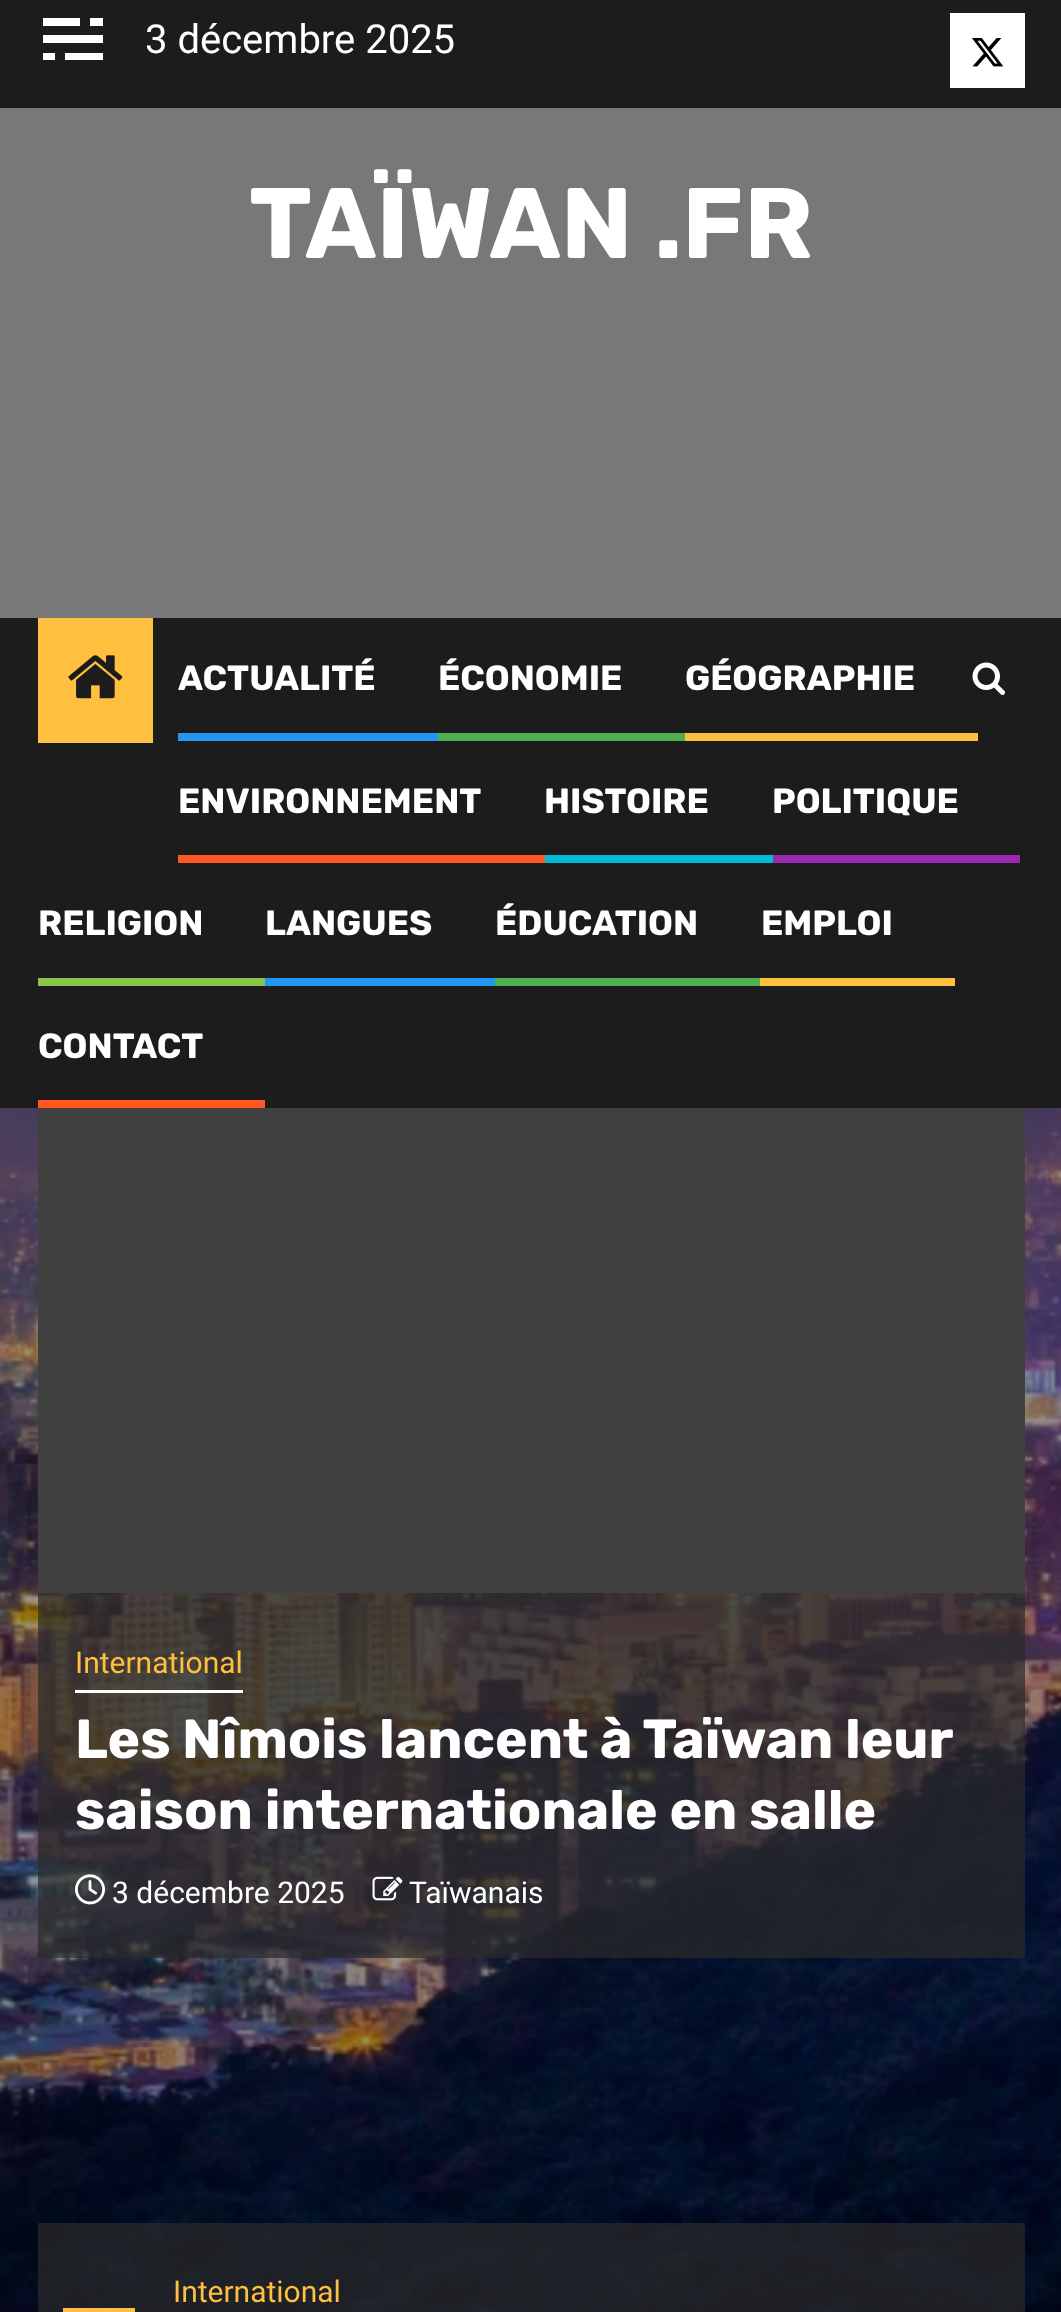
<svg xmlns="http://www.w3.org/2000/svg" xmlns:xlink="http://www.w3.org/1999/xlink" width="1061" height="2312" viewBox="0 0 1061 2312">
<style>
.cls-1{font:40px Roboto;fill:#ffffff}
.cls-2{font:bold 100px Rubik;fill:#ffffff}
.cls-3{font:bold 35px Rubik;fill:#ffffff}
.cls-4{font:30px Roboto;fill:#ffbf3f}
.cls-5{font:bold 55px Rubik;fill:#ffffff}
.cls-6{font:30px Roboto;fill:#ffffff}
</style>
<rect width="100%" height="100%" fill="#1c1c1c"/>
<rect fill="#ffffff" x="90" y="18" width="13" height="8"/>
<rect fill="#ffffff" x="43" y="18" width="37" height="8"/>
<rect fill="#ffffff" x="43" y="35" width="60" height="8"/>
<rect fill="#ffffff" x="65" y="53" width="38" height="7"/>
<rect fill="#ffffff" x="43" y="53" width="12" height="7"/>
<rect fill="#ffffff" x="950" y="13" width="75" height="75"/>
<image xlink:href="image0.png" x="972" y="38" width="32" height="29"/>
<rect fill="#787878" x="0" y="108" width="1061" height="510"/>
<rect fill="#ffbf3f" x="38" y="618" width="115" height="125"/>
<image xlink:href="image1.png" x="68" y="655" width="55" height="44"/>
<rect fill="#2196f3" x="178" y="733" width="260" height="8"/>
<rect fill="#4caf50" x="438" y="733" width="247" height="8"/>
<rect fill="#ffbf3f" x="685" y="733" width="293" height="8"/>
<rect fill="#ff5722" x="178" y="855" width="367" height="8"/>
<rect fill="#00bcd4" x="545" y="855" width="228" height="8"/>
<rect fill="#9c27b0" x="773" y="855" width="247" height="8"/>
<rect fill="#8bc34a" x="38" y="978" width="227" height="8"/>
<rect fill="#2196f3" x="265" y="978" width="230" height="8"/>
<rect fill="#4caf50" x="495" y="978" width="265" height="8"/>
<rect fill="#ffbf3f" x="760" y="978" width="195" height="8"/>
<rect fill="#ff5722" x="38" y="1100" width="227" height="8"/>
<image xlink:href="image2.png" x="972" y="662" width="33" height="33"/>
<image xlink:href="image3.png" x="0" y="1108" width="1061" height="1204"/>
<rect fill="#404040" x="38" y="1108" width="987" height="485"/>
<rect fill="#2b2b2b" fill-opacity="0.7" x="38" y="1593" width="987" height="365"/>
<rect fill="#ffffff" x="75" y="1690" width="168" height="3"/>
<image xlink:href="image4.png" x="75" y="1874" width="30" height="31"/>
<image xlink:href="image5.png" x="372" y="1876" width="31" height="25"/>
<rect fill="#2b2b2b" fill-opacity="0.7" x="38" y="2223" width="987" height="89"/>
<rect fill="#ffbf3f" x="63" y="2308" width="72" height="4"/>
<text class="cls-1" x="145" y="53">3 décembre 2025</text>
<text class="cls-2" x="249" y="258">TAÏWAN .FR</text>
<text class="cls-3" x="178" y="690">ACTUALITÉ</text>
<text class="cls-3" x="438" y="690">ÉCONOMIE</text>
<text class="cls-3" x="685" y="690">GÉOGRAPHIE</text>
<text class="cls-3" x="178" y="813">ENVIRONNEMENT</text>
<text class="cls-3" x="544" y="813">HISTOIRE</text>
<text class="cls-3" x="772" y="813">POLITIQUE</text>
<text class="cls-3" x="38" y="935">RELIGION</text>
<text class="cls-3" x="265" y="935">LANGUES</text>
<text class="cls-3" x="495" y="935">ÉDUCATION</text>
<text class="cls-3" x="761" y="935">EMPLOI</text>
<text class="cls-3" x="38" y="1058">CONTACT</text>
<text class="cls-4" x="75" y="1673">International</text>
<text class="cls-5"><tspan x="75" y="1758" word-spacing="-0.25">Les Nîmois lancent à Taïwan leur</tspan><tspan x="75" y="1829">saison internationale en salle</tspan></text>
<text class="cls-6" x="112" y="1903">3 décembre 2025</text>
<text class="cls-6" x="409" y="1903">Taïwanais</text>
<text class="cls-4" x="173" y="2302">International</text>
</svg>
